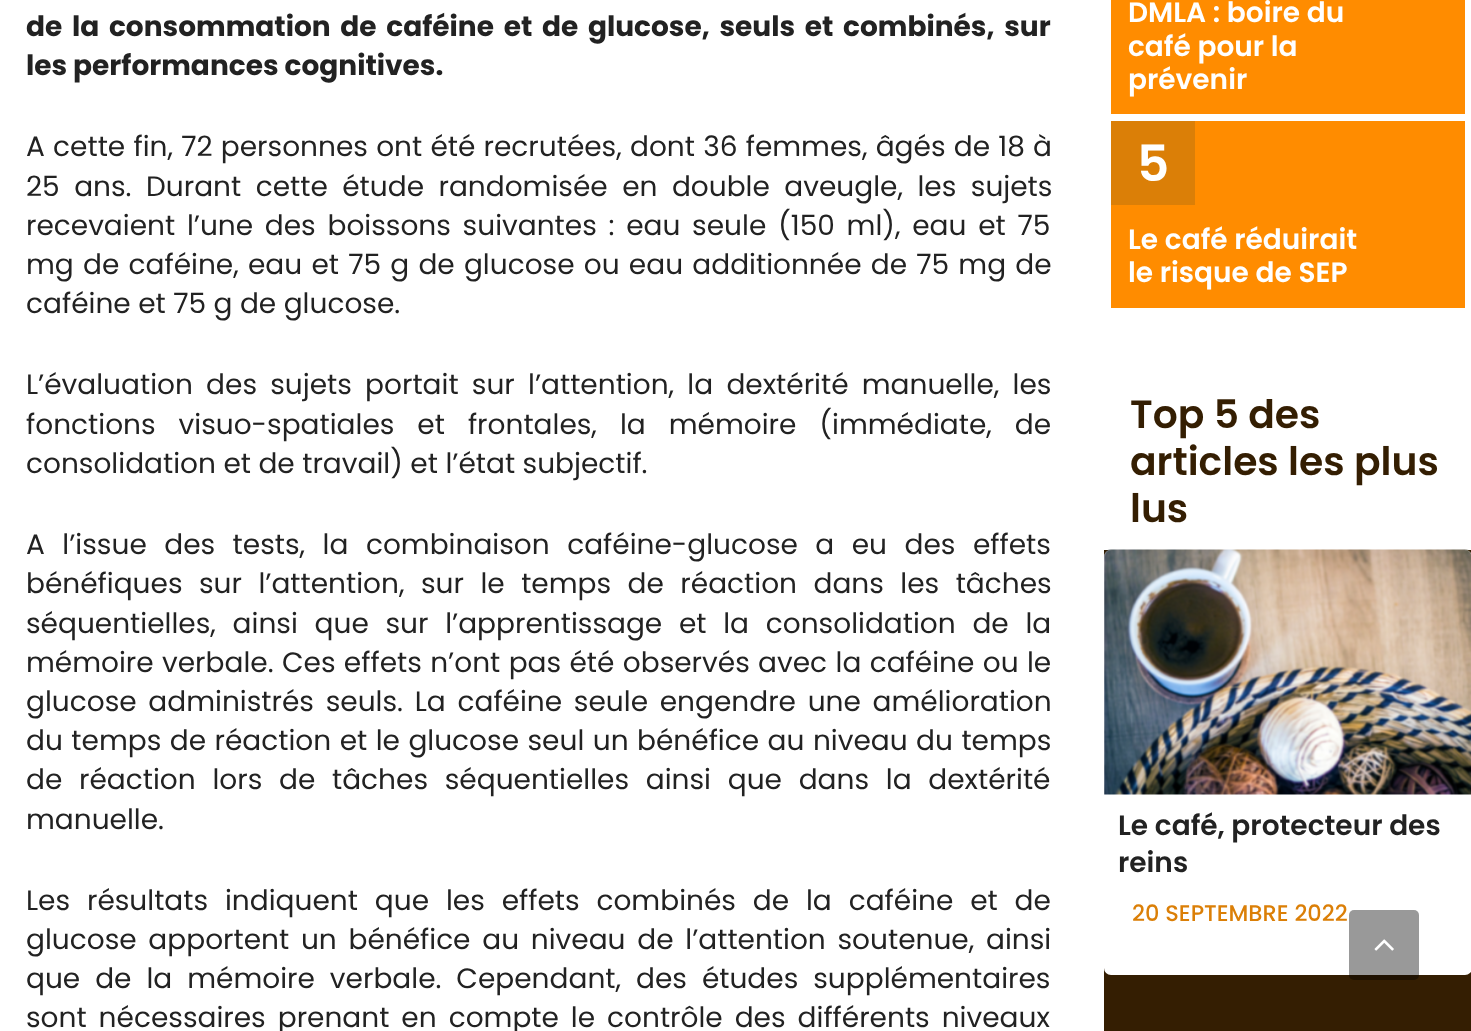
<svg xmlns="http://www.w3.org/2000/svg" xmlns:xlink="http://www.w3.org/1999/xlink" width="1471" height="1031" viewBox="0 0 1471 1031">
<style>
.cls-1{font:bold 28px Poppins;fill:#222222}
.cls-2{font:28px Poppins;fill:#222222}
.cls-3{font:600 28px Poppins;fill:#ffffff}
.cls-4{font:600 50px Poppins;fill:#ffffff}
.cls-5{font:600 39.25px Poppins;fill:#341e02}
.cls-6{font:600 28px Poppins;fill:#222222}
.cls-7{font:500 22.5px Poppins;fill:#db7f07}
</style>
<rect width="100%" height="100%" fill="#ffffff"/>
<rect fill="#ff8c00" x="1111" y="0" width="354" height="114"/>
<rect fill="#ff8c00" x="1111" y="121" width="354" height="187"/>
<rect fill="#db7f07" x="1111" y="121" width="84" height="84"/>
<rect fill="#341e02" x="1104" y="550" width="367" height="481"/>
<rect fill="#ffffff" x="1104" y="550" width="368" height="425" rx="7"/>
<image xlink:href="image0.png" x="1104" y="549" width="367" height="246"/>
<rect fill="#000000" fill-opacity="0.4" x="1349" y="910" width="70" height="70" rx="5"/>
<image xlink:href="image1.png" x="1374" y="939" width="20" height="12"/>
<text class="cls-1"><tspan x="26" y="36" word-spacing="3.75">de la consommation de caféine et de glucose, seuls et combinés, sur</tspan><tspan x="26" y="75">les performances cognitives.</tspan></text>
<text class="cls-2"><tspan x="26" y="156" word-spacing="0.75">A cette fin, 72 personnes ont été recrutées, dont 36 femmes, âgés de 18 à</tspan><tspan x="26" y="196" word-spacing="7">25 ans. Durant cette étude randomisée en double aveugle, les sujets</tspan><tspan x="26" y="235" word-spacing="4.25">recevaient l’une des boissons suivantes : eau seule (150 ml), eau et 75</tspan><tspan x="26" y="274" word-spacing="1.75">mg de caféine, eau et 75 g de glucose ou eau additionnée de 75 mg de</tspan><tspan x="26" y="313">caféine et 75 g de glucose.</tspan></text>
<text class="cls-2"><tspan x="26" y="394" word-spacing="5.75">L’évaluation des sujets portait sur l’attention, la dextérité manuelle, les</tspan><tspan x="26" y="434" word-spacing="15.5">fonctions visuo-spatiales et frontales, la mémoire (immédiate, de</tspan><tspan x="26" y="473">consolidation et de travail) et l’état subjectif.</tspan></text>
<text class="cls-2"><tspan x="26" y="554" word-spacing="10">A l’issue des tests, la combinaison caféine-glucose a eu des effets</tspan><tspan x="26" y="593" word-spacing="9">bénéfiques sur l’attention, sur le temps de réaction dans les tâches</tspan><tspan x="26" y="633" word-spacing="9.25">séquentielles, ainsi que sur l’apprentissage et la consolidation de la</tspan><tspan x="26" y="672" word-spacing="0.9">mémoire verbale. Ces effets n’ont pas été observés avec la caféine ou le</tspan><tspan x="26" y="711" word-spacing="4.25">glucose administrés seuls. La caféine seule engendre une amélioration</tspan><tspan x="26" y="750" word-spacing="1">du temps de réaction et le glucose seul un bénéfice au niveau du temps</tspan><tspan x="26" y="789" word-spacing="9.25">de réaction lors de tâches séquentielles ainsi que dans la dextérité</tspan><tspan x="26" y="829">manuelle.</tspan></text>
<text class="cls-2"><tspan x="26" y="910" word-spacing="9.4">Les résultats indiquent que les effets combinés de la caféine et de</tspan><tspan x="26" y="949" word-spacing="4.25">glucose apportent un bénéfice au niveau de l’attention soutenue, ainsi</tspan><tspan x="26" y="988" word-spacing="7.5">que de la mémoire verbale. Cependant, des études supplémentaires</tspan><tspan x="26" y="1027" word-spacing="4.5">sont nécessaires prenant en compte le contrôle des différents niveaux</tspan></text>
<text class="cls-3"><tspan x="1128" y="22">DMLA : boire du</tspan><tspan x="1128" y="56">café pour la</tspan><tspan x="1128" y="89">prévenir</tspan></text>
<text class="cls-4" x="1137" y="181">5</text>
<text class="cls-3"><tspan x="1128" y="249">Le café réduirait</tspan><tspan x="1128" y="282">le risque de SEP</tspan></text>
<text class="cls-5"><tspan x="1130" y="428">Top 5 des</tspan><tspan x="1130" y="475">articles les plus</tspan><tspan x="1130" y="522">lus</tspan></text>
<text class="cls-6"><tspan x="1118" y="835">Le café, protecteur des</tspan><tspan x="1118" y="872">reins</tspan></text>
<text class="cls-7" x="1132" y="921">20 SEPTEMBRE 2022</text>
</svg>
